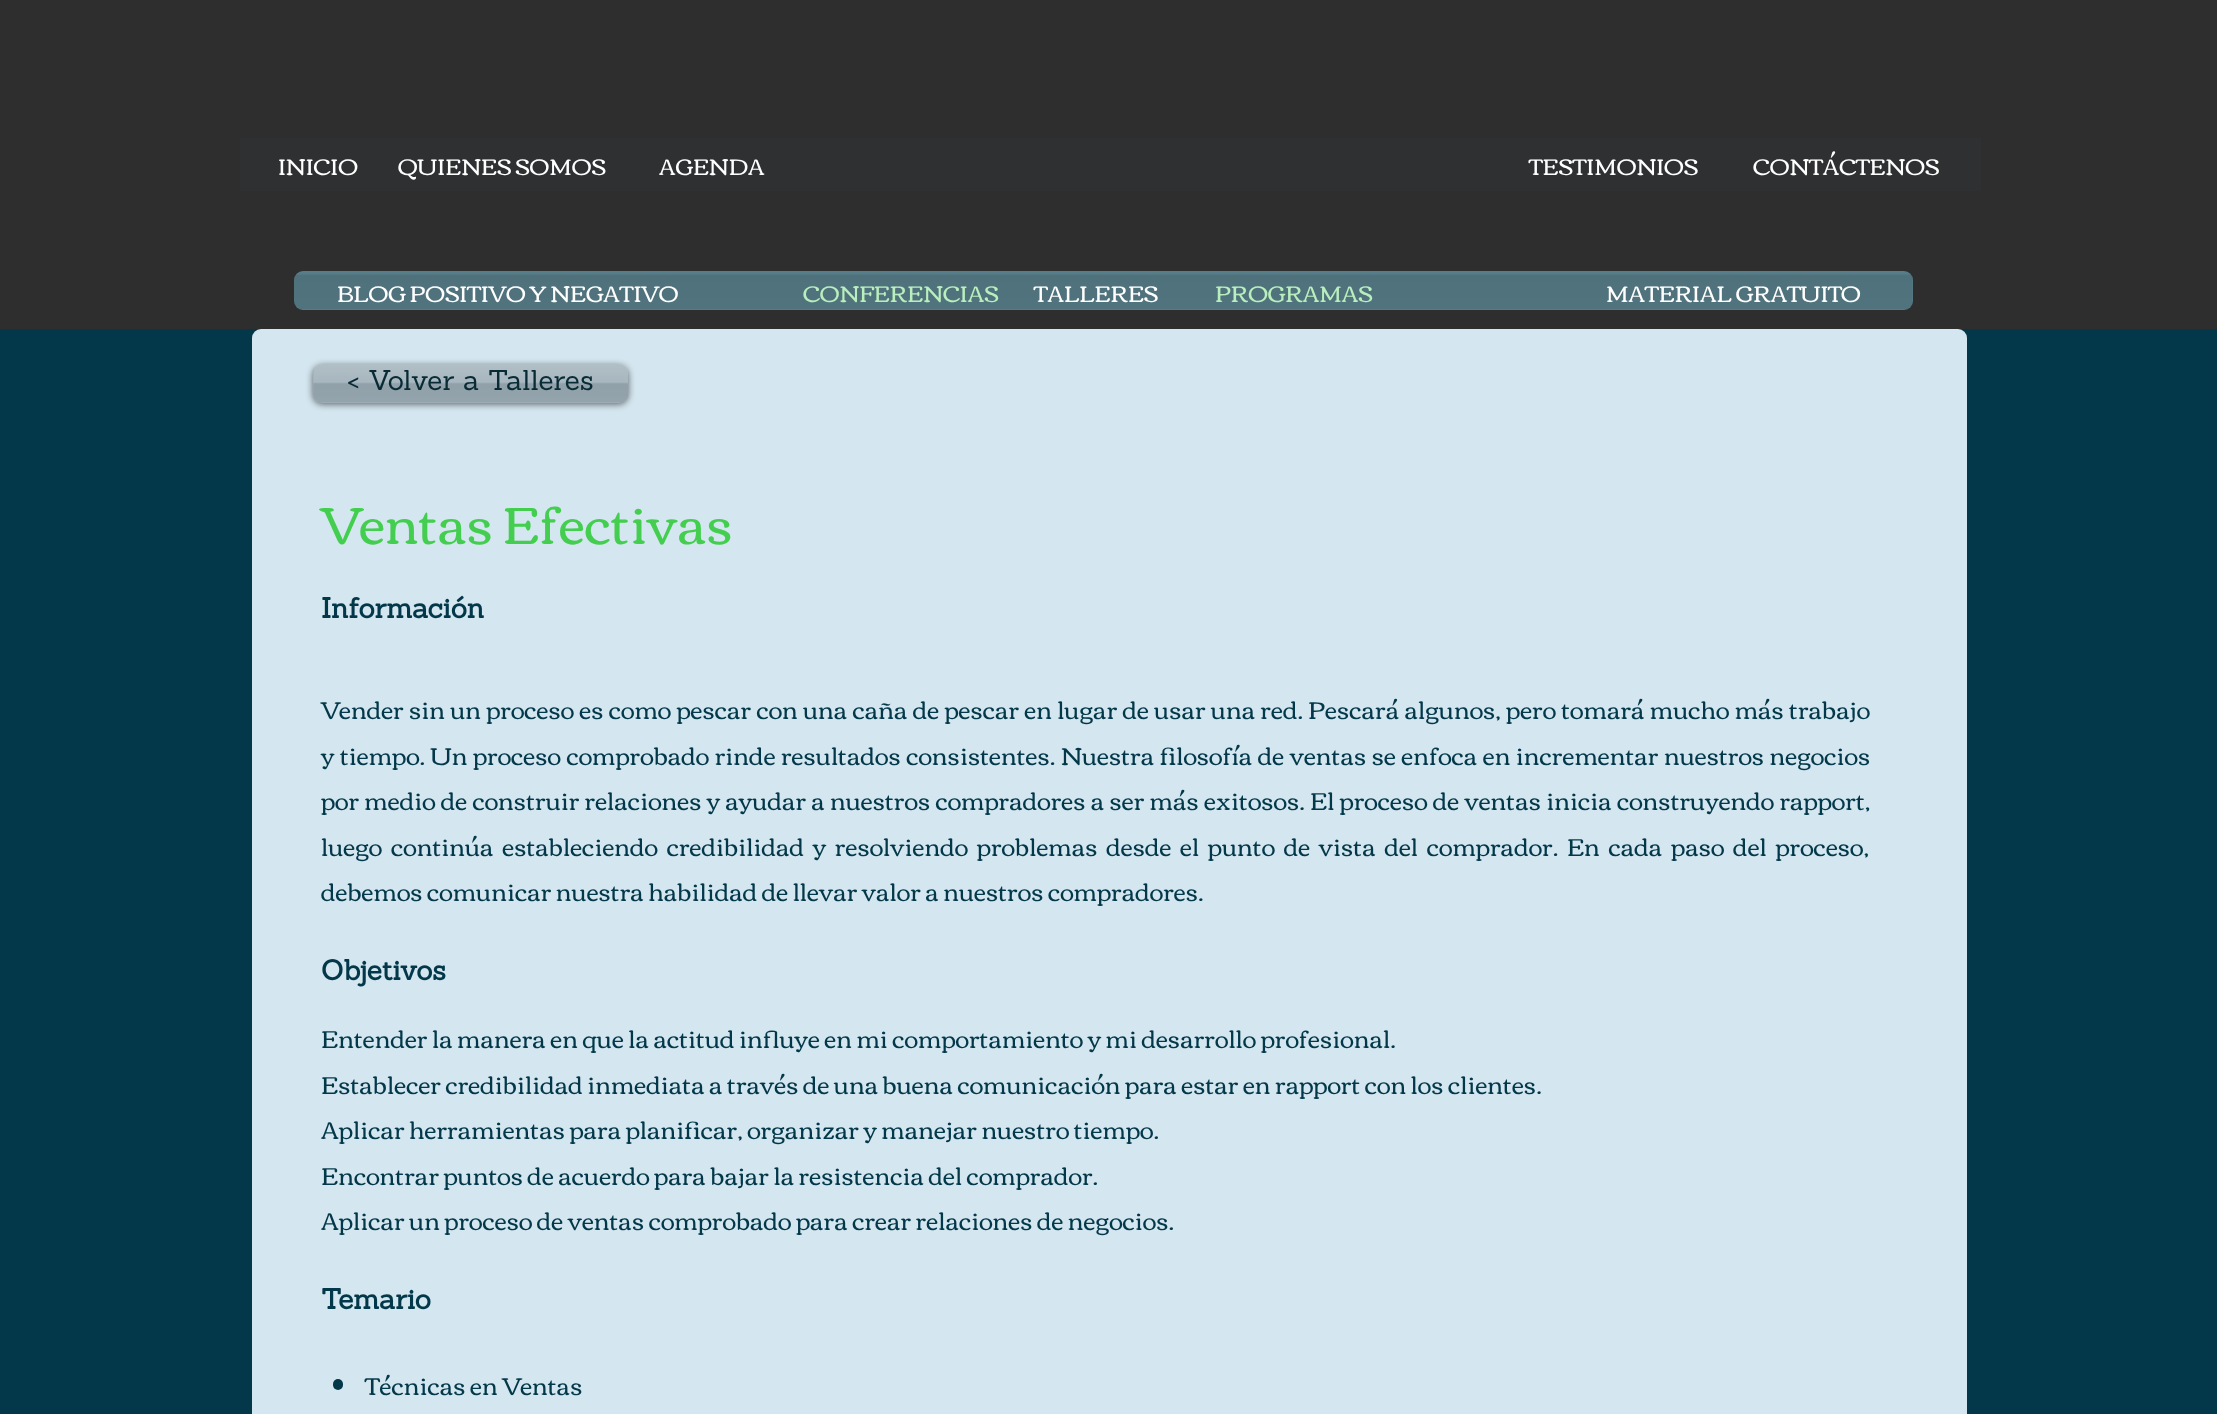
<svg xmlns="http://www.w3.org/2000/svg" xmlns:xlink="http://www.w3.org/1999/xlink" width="2217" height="1414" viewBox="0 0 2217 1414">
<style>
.cls-1{font:22.75px Corben;fill:#ffffff}
.cls-2{font:22.75px Corben;fill:#b9eebd}
.cls-3{font:28px Sanchez;fill:#092b35}
.cls-4{font:52.5px Corben;fill:#44ce4f}
.cls-5{font:bold 28px Sanchez;fill:#023849}
.cls-6{font:24.5px Corben;fill:#023849}
</style>
<rect width="100%" height="100%" fill="#023849"/>
<rect fill="#2f2e2e" x="0" y="0" width="2217" height="329"/>
<rect fill="#2e3031" x="240" y="138" width="1741" height="53"/>
<rect fill="#577d89" x="294" y="271" width="1619" height="39" rx="9"/>
<image xlink:href="image0.png" x="294" y="274" width="1619" height="35"/>
<rect fill="#d4e6ef" x="252" y="329" width="1715" height="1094" rx="9"/>
<rect fill="#000000" fill-opacity="0.6" filter="blur(3.5px)" x="313" y="366" width="315" height="38" rx="9"/>
<rect fill="#9cadb7" x="313" y="364" width="315" height="39" rx="9"/>
<image xlink:href="image1.png" x="313" y="364" width="315" height="38"/>
<rect fill="#023849" x="333" y="1379" width="10" height="11" rx="5"/>
<text class="cls-1" x="278" y="175">INICIO</text>
<text class="cls-1" x="398" y="175">QUIENES SOMOS</text>
<text class="cls-1" x="659" y="175">AGENDA</text>
<text class="cls-1" x="1529" y="175">TESTIMONIOS</text>
<text class="cls-1" x="1753" y="175">CONTÁCTENOS</text>
<text class="cls-1" x="337" y="302">BLOG POSITIVO Y NEGATIVO</text>
<text class="cls-2" x="803" y="302">CONFERENCIAS</text>
<text class="cls-1" x="1034" y="302">TALLERES</text>
<text class="cls-2" x="1215" y="302">PROGRAMAS</text>
<text class="cls-1" x="1606" y="302">MATERIAL GRATUITO</text>
<text class="cls-3" x="347" y="390">&lt; Volver a Talleres</text>
<text class="cls-4" x="321" y="544">Ventas Efectivas</text>
<text class="cls-5" x="321" y="618">Información</text>
<text class="cls-6"><tspan x="321" y="719" word-spacing="0.75">Vender sin un proceso es como pescar con una caña de pescar en lugar de usar una red. Pescará algunos, pero tomará mucho más trabajo</tspan><tspan x="321" y="765" word-spacing="1">y tiempo. Un proceso comprobado rinde resultados consistentes. Nuestra filosofía de ventas se enfoca en incrementar nuestros negocios</tspan><tspan x="321" y="810" word-spacing="0.75">por medio de construir relaciones y ayudar a nuestros compradores a ser más exitosos. El proceso de ventas inicia construyendo rapport,</tspan><tspan x="321" y="856" word-spacing="4.25">luego continúa estableciendo credibilidad y resolviendo problemas desde el punto de vista del comprador. En cada paso del proceso,</tspan><tspan x="321" y="901">debemos comunicar nuestra habilidad de llevar valor a nuestros compradores.</tspan></text>
<text class="cls-5" x="321" y="980">Objetivos</text>
<text class="cls-6"><tspan x="321" y="1048">Entender la manera en que la actitud influye en mi comportamiento y mi desarrollo profesional.</tspan><tspan x="321" y="1094">Establecer credibilidad inmediata a través de una buena comunicación para estar en rapport con los clientes.</tspan><tspan x="321" y="1139">Aplicar herramientas para planificar, organizar y manejar nuestro tiempo.</tspan><tspan x="321" y="1185">Encontrar puntos de acuerdo para bajar la resistencia del comprador.</tspan><tspan x="321" y="1230">Aplicar un proceso de ventas comprobado para crear relaciones de negocios.</tspan></text>
<text class="cls-5" x="321" y="1309">Temario</text>
<text class="cls-6" x="365" y="1395">Técnicas en Ventas</text>
</svg>
